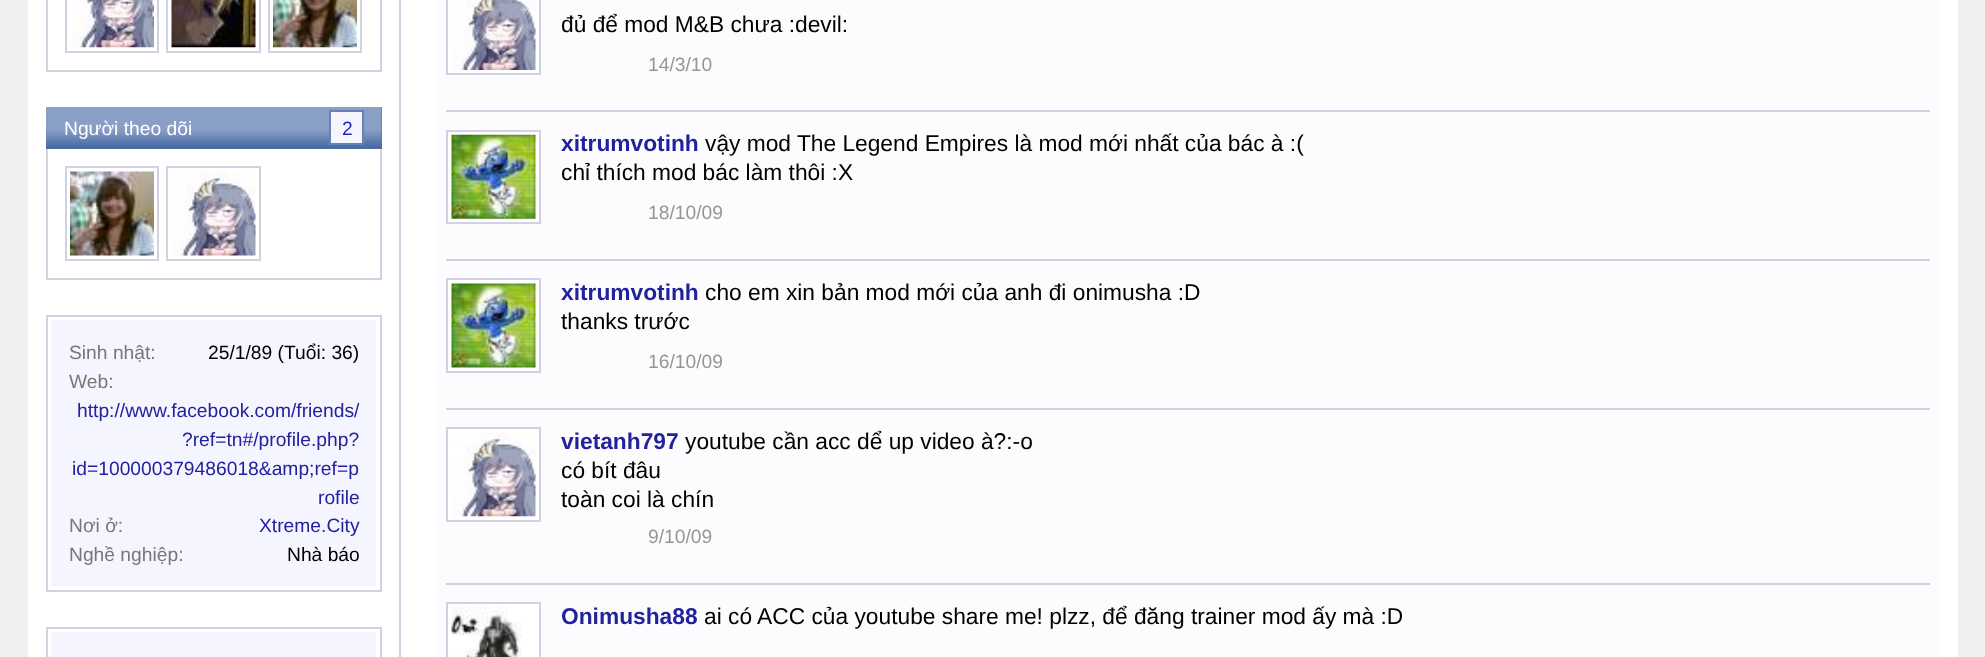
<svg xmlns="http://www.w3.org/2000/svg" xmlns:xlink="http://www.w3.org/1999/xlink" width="1985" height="657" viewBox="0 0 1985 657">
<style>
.cls-1{font:19.25px Liberation Sans;fill:#ffffff}
.cls-2{font:19.25px Liberation Sans;fill:#2222c9}
.cls-3{font:19.25px Liberation Sans;fill:#777777}
.cls-4{font:19.25px Liberation Sans;fill:#000000}
.cls-5{font:19.25px Liberation Sans;fill:#22229c}
.cls-6{font:22.75px Liberation Sans;fill:#000000}
.cls-7{font:19.25px Liberation Sans;fill:#969696}
.cls-8{font:bold 22.75px Liberation Sans;fill:#22229c}
</style>
<rect width="100%" height="100%" fill="#f0f0f0"/>
<rect fill="#ffffff" x="28" y="0" width="1930" height="657"/>
<rect fill="#d1d1e1" x="380" y="0" width="2" height="72"/>
<rect fill="#d1d1e1" x="46" y="70" width="336" height="2"/>
<rect fill="#d1d1e1" x="46" y="0" width="2" height="72"/>
<image xlink:href="image0.png" x="70" y="0" width="84" height="48"/>
<rect fill="none" stroke="#d1d1e1" stroke-width="2" x="66" y="-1" width="92" height="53"/>
<image xlink:href="image1.png" x="171" y="0" width="85" height="48"/>
<rect fill="none" stroke="#d1d1e1" stroke-width="2" x="167" y="-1" width="93" height="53"/>
<image xlink:href="image2.png" x="273" y="0" width="84" height="48"/>
<rect fill="none" stroke="#d1d1e1" stroke-width="2" x="269" y="-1" width="92" height="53"/>
<rect fill="#4b6ca6" x="46" y="107" width="336" height="42"/>
<image xlink:href="image3.png" x="46" y="107" width="336" height="39"/>
<rect fill="#f5f5ff" stroke="#6682b3" stroke-width="2" x="330" y="111" width="33" height="33"/>
<rect fill="#d1d1e1" x="380" y="149" width="2" height="131"/>
<rect fill="#d1d1e1" x="46" y="278" width="336" height="2"/>
<rect fill="#d1d1e1" x="46" y="149" width="2" height="131"/>
<image xlink:href="image4.png" x="70" y="171" width="84" height="85"/>
<rect fill="none" stroke="#d1d1e1" stroke-width="2" x="66" y="167" width="92" height="93"/>
<image xlink:href="image5.png" x="172" y="171" width="84" height="85"/>
<rect fill="none" stroke="#d1d1e1" stroke-width="2" x="167" y="167" width="93" height="93"/>
<rect fill="none" stroke="#d1d1e1" stroke-width="2" x="47" y="316" width="334" height="275"/>
<rect fill="#f5f5ff" x="51" y="320" width="325" height="266"/>
<rect fill="none" stroke="#d1d1e1" stroke-width="2" x="47" y="628" width="334" height="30"/>
<rect fill="#f5f5ff" x="51" y="632" width="325" height="25"/>
<rect fill="#d1d1e1" x="399" y="0" width="2" height="657"/>
<rect fill="#fcfcff" x="436" y="0" width="1505" height="657"/>
<rect fill="#d1d1e1" x="446" y="110" width="1484" height="2"/>
<rect fill="#ffffff" stroke="#d1d1e1" stroke-width="2" x="447" y="-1" width="93" height="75"/>
<image xlink:href="image6.png" x="452" y="0" width="84" height="70"/>
<rect fill="#d1d1e1" x="446" y="259" width="1484" height="2"/>
<rect fill="#ffffff" stroke="#d1d1e1" stroke-width="2" x="447" y="131" width="93" height="92"/>
<image xlink:href="image7.png" x="451" y="134" width="85" height="85"/>
<rect fill="#d1d1e1" x="446" y="408" width="1484" height="2"/>
<rect fill="#ffffff" stroke="#d1d1e1" stroke-width="2" x="447" y="279" width="93" height="93"/>
<image xlink:href="image8.png" x="451" y="283" width="85" height="85"/>
<rect fill="#d1d1e1" x="446" y="583" width="1484" height="2"/>
<rect fill="#ffffff" stroke="#d1d1e1" stroke-width="2" x="447" y="428" width="93" height="93"/>
<image xlink:href="image9.png" x="452" y="432" width="84" height="85"/>
<rect fill="#ffffff" stroke="#d1d1e1" stroke-width="2" x="447" y="603" width="93" height="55"/>
<image xlink:href="image10.png" x="451" y="607" width="71" height="50"/>
<text class="cls-1" x="64" y="135">Người theo dõi</text>
<text class="cls-2" x="342" y="135">2</text>
<text class="cls-3" x="69" y="359">Sinh nhật:</text>
<text class="cls-4" x="208" y="359">25/1/89 (Tuổi: 36)</text>
<text class="cls-3" x="69" y="388">Web:</text>
<text class="cls-5" x="77" y="417">http://www.facebook.com/friends/</text>
<text class="cls-5" x="182" y="446">?ref=tn#/profile.php?</text>
<text class="cls-5" x="72" y="475">id=100000379486018&amp;amp;ref=p</text>
<text class="cls-5" x="318" y="504">rofile</text>
<text class="cls-3" x="69" y="532">Nơi ở:</text>
<text class="cls-5" x="259" y="532">Xtreme.City</text>
<text class="cls-3" x="69" y="561">Nghề nghiệp:</text>
<text class="cls-4" x="287" y="561">Nhà báo</text>
<text class="cls-6" x="561" y="32">đủ để mod M&amp;B chưa :devil:</text>
<text class="cls-7" x="648" y="71">14/3/10</text>
<text class="cls-8" x="561" y="151">xitrumvotinh</text>
<text class="cls-6" x="705" y="151">vậy mod The Legend Empires là mod mới nhất của bác à :(</text>
<text class="cls-6" x="561" y="180">chỉ thích mod bác làm thôi :X</text>
<text class="cls-7" x="648" y="219">18/10/09</text>
<text class="cls-8" x="561" y="300">xitrumvotinh</text>
<text class="cls-6" x="705" y="300">cho em xin bản mod mới của anh đi onimusha :D</text>
<text class="cls-6" x="561" y="329">thanks trước</text>
<text class="cls-7" x="648" y="368">16/10/09</text>
<text class="cls-8" x="561" y="449">vietanh797</text>
<text class="cls-6" x="685" y="449">youtube cần acc dể up video à?:-o</text>
<text class="cls-6"><tspan x="561" y="478">có bít đâu</tspan><tspan x="561" y="507">toàn coi là chín</tspan></text>
<text class="cls-7" x="648" y="543">9/10/09</text>
<text class="cls-8" x="561" y="624">Onimusha88</text>
<text class="cls-6" x="704" y="624">ai có ACC của youtube share me! plzz, để đăng trainer mod ấy mà :D</text>
</svg>
